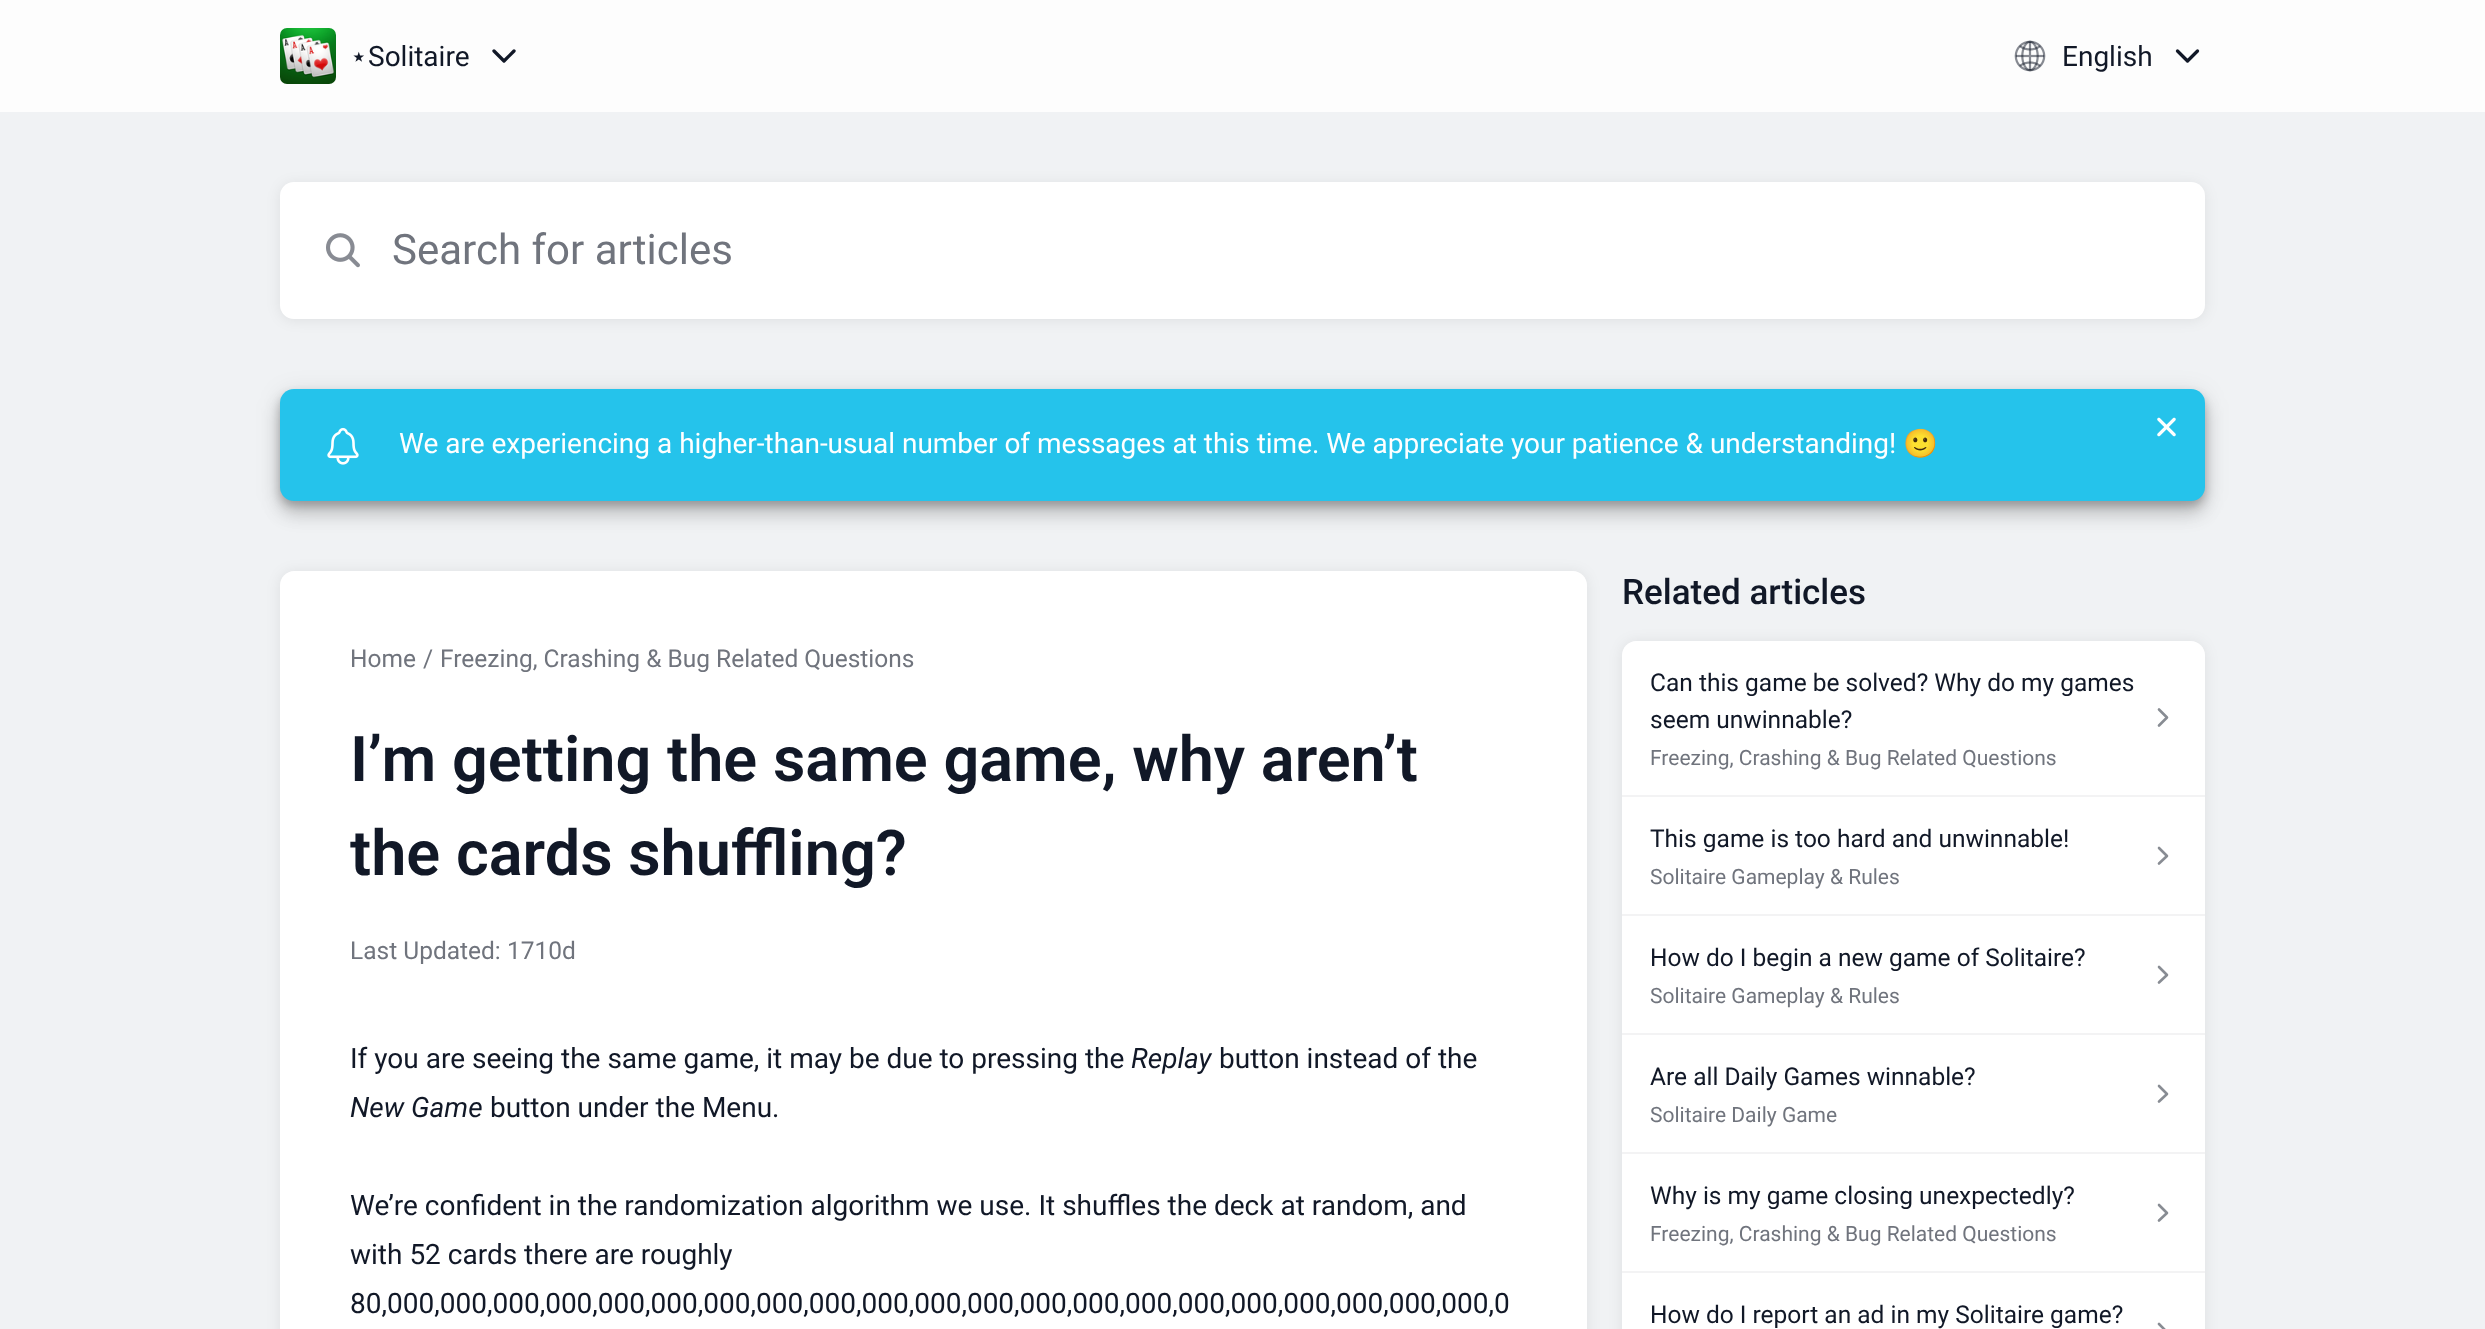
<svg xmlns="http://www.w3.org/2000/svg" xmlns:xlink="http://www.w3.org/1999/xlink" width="2485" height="1329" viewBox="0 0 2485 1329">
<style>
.cls-1{font:28px DejaVu Sans;fill:#111827}
.cls-2{font:28px Roboto;fill:#111827}
.cls-3{font:42px Roboto;fill:#70747d}
.cls-4{font:28px Roboto;fill:#ffffff}
.cls-5{font:28px Noto Color Emoji;fill:#ffffff}
.cls-6{font:24.5px Roboto;fill:#70747d}
.cls-7{font:600 63px Roboto;fill:#111827}
.cls-8{font:italic 28px Roboto;fill:#111827}
.cls-9{font:500 35px Roboto;fill:#111827}
.cls-10{font:24.5px Roboto;fill:#111827}
.cls-11{font:21px Roboto;fill:#70747d}
</style>
<rect width="100%" height="100%" fill="#fdfdfd"/>
<image xlink:href="image0.png" x="280" y="28" width="56" height="56"/>
<path fill="none" stroke="#111827" stroke-width="3.3" stroke-linecap="round" stroke-linejoin="round" d="M494 51L504 61L514 51"/>
<image xlink:href="image1.png" x="2014" y="40" width="32" height="32"/>
<path fill="none" stroke="#111827" stroke-width="3.3" stroke-linecap="round" stroke-linejoin="round" d="M2177.5 51L2187.5 61L2197.5 51"/>
<rect fill="#f0f2f4" x="0" y="112" width="2485" height="1217"/>
<rect fill="#000000" fill-opacity="0.08" filter="blur(7px)" x="280" y="184" width="1925" height="136" rx="14"/>
<rect fill="#ffffff" x="280" y="182" width="1925" height="137" rx="14"/>
<image xlink:href="image2.png" x="326" y="233" width="34" height="35"/>
<rect fill="#000000" fill-opacity="0.14" filter="blur(9px)" x="280" y="403" width="1925" height="112" rx="14"/>
<rect fill="#000000" fill-opacity="0.12" filter="blur(12px)" x="280" y="394" width="1925" height="112" rx="14"/>
<rect fill="#000000" fill-opacity="0.2" filter="blur(4.5px)" x="280" y="394" width="1925" height="112" rx="14"/>
<rect fill="#25c3eb" x="280" y="389" width="1925" height="112" rx="14"/>
<image xlink:href="image3.png" x="327" y="427" width="32" height="38"/>
<image xlink:href="image4.png" x="2157" y="417" width="19" height="20"/>
<rect fill="#000000" fill-opacity="0.08" filter="blur(7px)" x="280" y="572" width="1307" height="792" rx="14"/>
<path fill="#ffffff" d="M294 571H1573C1580.5 571 1587 577.5 1587 585V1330H280V585C280 577.5 286.5 571 294 571Z"/>
<rect fill="#000000" fill-opacity="0.08" filter="blur(7px)" x="1622" y="642" width="583" height="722" rx="14"/>
<path fill="#ffffff" d="M1636 641H2191C2198.5 641 2205 647.5 2205 655V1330H1622V655C1622 647.5 1628.5 641 1636 641Z"/>
<rect fill="#f3f3f4" x="1622" y="795" width="583" height="2"/>
<path fill="none" stroke="#888c93" stroke-width="2.6" stroke-linecap="round" stroke-linejoin="round" d="M2159 709.5L2167 717.5L2159 725.5"/>
<rect fill="#f3f3f4" x="1622" y="914" width="583" height="2"/>
<path fill="none" stroke="#888c93" stroke-width="2.6" stroke-linecap="round" stroke-linejoin="round" d="M2159 848L2167 856L2159 863.5"/>
<rect fill="#f3f3f4" x="1622" y="1033" width="583" height="2"/>
<path fill="none" stroke="#888c93" stroke-width="2.6" stroke-linecap="round" stroke-linejoin="round" d="M2159 967L2167 975L2159 982.5"/>
<rect fill="#f3f3f4" x="1622" y="1152" width="583" height="2"/>
<path fill="none" stroke="#888c93" stroke-width="2.6" stroke-linecap="round" stroke-linejoin="round" d="M2159 1086L2167 1094L2159 1101.5"/>
<rect fill="#f3f3f4" x="1622" y="1271" width="583" height="2"/>
<path fill="none" stroke="#888c93" stroke-width="2.6" stroke-linecap="round" stroke-linejoin="round" d="M2159 1205L2167 1213L2159 1220.5"/>
<path fill="none" stroke="#888c93" stroke-width="2.6" stroke-linecap="round" stroke-linejoin="round" d="M2159 1324L2167 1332L2159 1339.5"/>
<text class="cls-1" x="350" y="66">⋆</text>
<text class="cls-2" x="368" y="66">Solitaire</text>
<text class="cls-2" x="2062" y="66">English</text>
<text class="cls-3" x="392" y="264">Search for articles</text>
<text class="cls-4" x="399" y="453">We are experiencing a higher-than-usual number of messages at this time. We appreciate your patience &amp; understanding!</text>
<text class="cls-5" x="1903" y="453">🙂</text>
<text class="cls-6" x="350" y="667">Home</text>
<text class="cls-6" x="423" y="667">/</text>
<text class="cls-6" x="440" y="667">Freezing, Crashing &amp; Bug Related Questions</text>
<text class="cls-7"><tspan x="350" y="781">I’m getting the same game, why aren’t</tspan><tspan x="350" y="875">the cards shuffling?</tspan></text>
<text class="cls-6" x="350" y="959">Last Updated: 1710d</text>
<text class="cls-2" x="350" y="1068">If you are seeing the same game, it may be due to pressing the</text>
<text class="cls-8" x="1131" y="1068">Replay</text>
<text class="cls-2" x="1219" y="1068">button instead of the</text>
<text class="cls-8" x="350" y="1117">New Game</text>
<text class="cls-2" x="490" y="1117">button under the Menu.</text>
<text class="cls-2"><tspan x="350" y="1215">We’re confident in the randomization algorithm we use. It shuffles the deck at random, and</tspan><tspan x="350" y="1264">with 52 cards there are roughly</tspan><tspan x="350" y="1313">80,000,000,000,000,000,000,000,000,000,000,000,000,000,000,000,000,000,000,000,000,000,0</tspan></text>
<text class="cls-9" x="1622" y="604">Related articles</text>
<text class="cls-10"><tspan x="1650" y="691">Can this game be solved? Why do my games</tspan><tspan x="1650" y="728">seem unwinnable?</tspan></text>
<text class="cls-11" x="1650" y="765">Freezing, Crashing &amp; Bug Related Questions</text>
<text class="cls-10" x="1650" y="847">This game is too hard and unwinnable!</text>
<text class="cls-11" x="1650" y="884">Solitaire Gameplay &amp; Rules</text>
<text class="cls-10" x="1650" y="966">How do I begin a new game of Solitaire?</text>
<text class="cls-11" x="1650" y="1003">Solitaire Gameplay &amp; Rules</text>
<text class="cls-10" x="1650" y="1085">Are all Daily Games winnable?</text>
<text class="cls-11" x="1650" y="1122">Solitaire Daily Game</text>
<text class="cls-10" x="1650" y="1204">Why is my game closing unexpectedly?</text>
<text class="cls-11" x="1650" y="1241">Freezing, Crashing &amp; Bug Related Questions</text>
<text class="cls-10" x="1650" y="1323">How do I report an ad in my Solitaire game?</text>
</svg>
